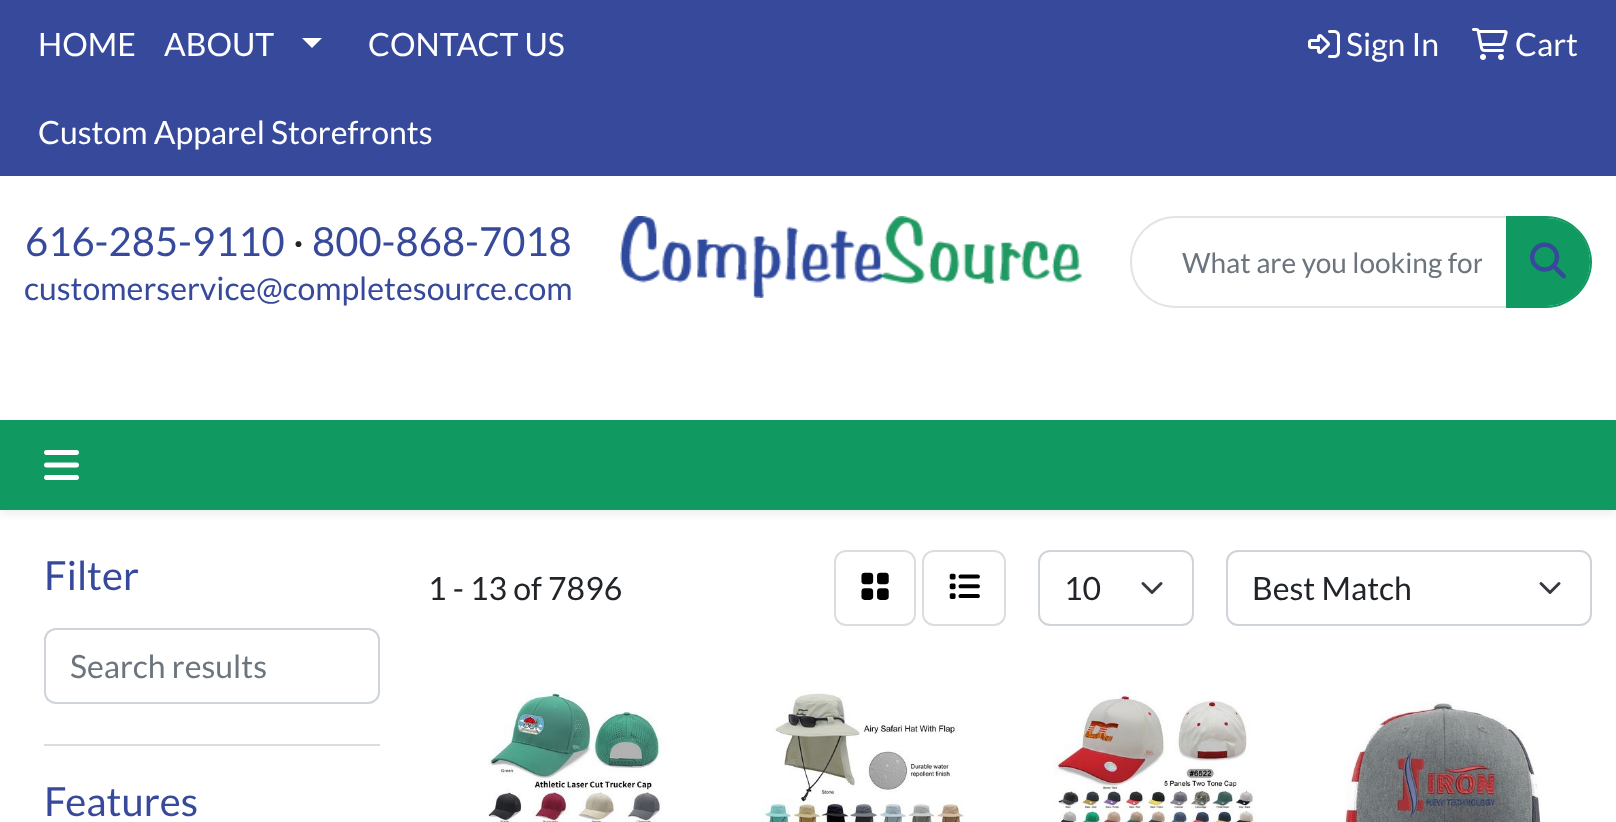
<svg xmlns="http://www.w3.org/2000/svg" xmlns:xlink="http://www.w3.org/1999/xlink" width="1616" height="822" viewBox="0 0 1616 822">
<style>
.cls-1{font:32px Lato;fill:#ffffff}
.cls-2{font:40px Lato;fill:#36499b}
.cls-3{font:40px Lato;fill:#212529}
.cls-4{font:32px Lato;fill:#36499b}
.cls-5{font:28px Lato;fill:#6c757d}
</style>
<defs>
<clipPath id="clip1"><rect x="1182" y="246" width="300" height="34"/></clipPath>
</defs>
<rect width="100%" height="100%" fill="#ffffff"/>
<rect fill="#36499b" x="0" y="0" width="1616" height="176"/>
<path fill="#ffffff" d="M302 38H322L312 48Z"/>
<image xlink:href="image0.png" x="1308" y="30" width="32" height="28"/>
<image xlink:href="image1.png" x="1472" y="28" width="36" height="32"/>
<image xlink:href="image2.png" x="620" y="216" width="462" height="82"/>
<path fill="none" stroke="#e4e4e4" stroke-width="2" d="M1176 217H1507V307H1176C1151 307 1131 287 1131 262C1131 237 1151 217 1176 217Z"/>
<path fill="#119962" d="M1506 218H1546C1570.5 218 1590 237.5 1590 262C1590 286.5 1570.5 306 1546 306H1506Z"/>
<path fill="#119962" fill-rule="evenodd" d="M1506 216H1546C1571 216 1592 237 1592 262C1592 287 1571 308 1546 308H1506ZM1506 218H1546C1570 218 1590 238 1590 262C1590 286 1570 306 1546 306H1506Z"/>
<image xlink:href="image3.png" x="1530" y="242" width="36" height="37"/>
<rect fill="#000000" fill-opacity="0.07" filter="blur(4px)" x="0" y="424" width="1616" height="90"/>
<rect fill="#119962" x="0" y="420" width="1616" height="90"/>
<image xlink:href="image4.png" x="44" y="450" width="35" height="30"/>
<image xlink:href="image5.png" x="44" y="550" width="1548" height="272"/>
<text class="cls-1" x="38" y="56">HOME</text>
<text class="cls-1" x="164" y="56">ABOUT</text>
<text class="cls-1" x="368" y="56">CONTACT US</text>
<text class="cls-1" x="38" y="144">Custom Apparel Storefronts</text>
<text class="cls-1" x="1346" y="56">Sign In</text>
<text class="cls-1" x="1515" y="56">Cart</text>
<text class="cls-2" x="25" y="256">616-285-9110</text>
<text class="cls-3" x="293" y="256">·</text>
<text class="cls-2" x="312" y="256">800-868-7018</text>
<text class="cls-4" x="24" y="300">customerservice@completesource.com</text>
<g clip-path="url(#clip1)">
<text class="cls-5" x="1182" y="273">What are you looking for</text>
</g>
</svg>
